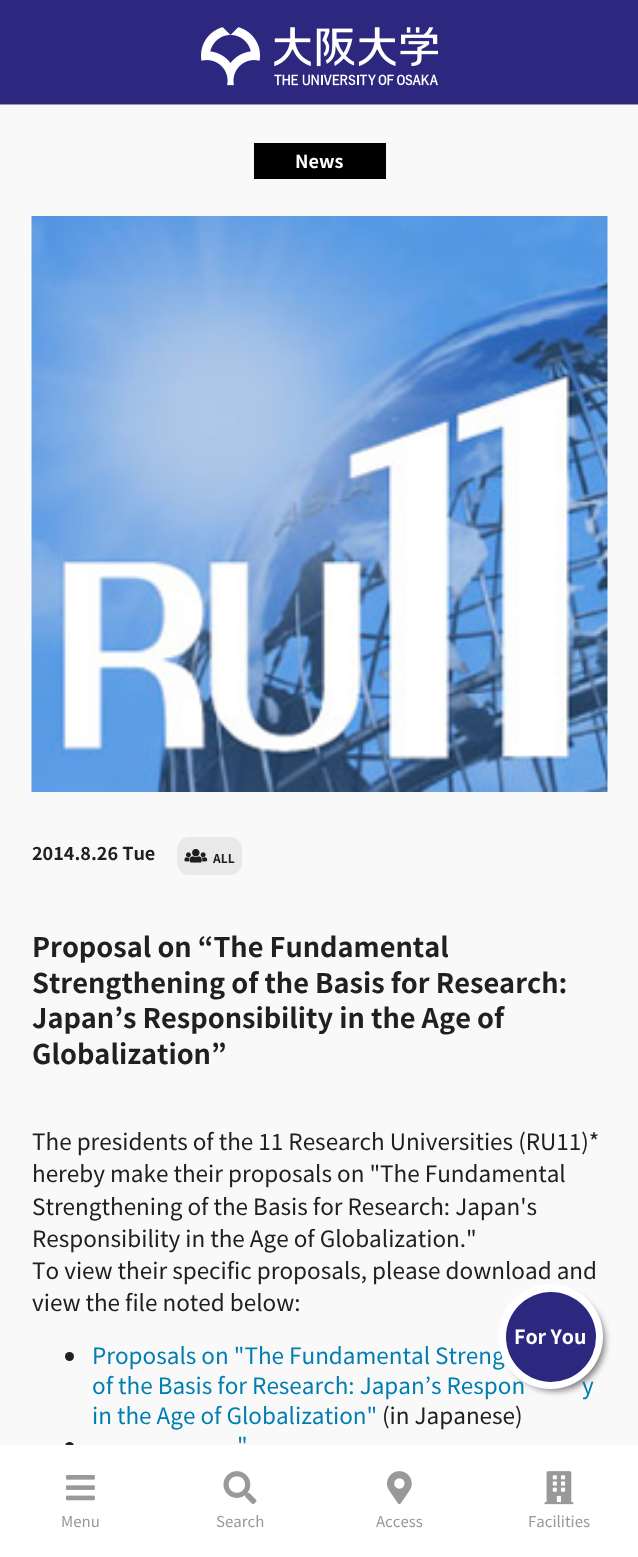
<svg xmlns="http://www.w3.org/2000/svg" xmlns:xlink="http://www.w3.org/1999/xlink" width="638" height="1557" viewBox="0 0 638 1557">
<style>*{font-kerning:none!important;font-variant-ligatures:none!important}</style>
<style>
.cls-1{font:bold 18px Noto Sans JP;fill:#ffffff}
.cls-2{font:bold 18px Noto Sans JP;fill:#202020}
.cls-3{font:bold 12px Noto Sans JP;fill:#202020}
.cls-4{font:bold 27.1px Noto Sans JP;fill:#202020}
.cls-5{font:22.5px Noto Sans JP;fill:#202020}
.cls-6{font:22.5px Noto Sans JP;fill:#007eb1}
.cls-7{font:bold 19.5px Noto Sans JP;fill:#ffffff}
.cls-8{font:15px Noto Sans JP;fill:#999999}
</style>
<rect width="100%" height="100%" fill="#2d287f"/>
<rect fill="#999999" x="0" y="104" width="638" height="1"/>
<image xlink:href="image0.png" x="201" y="27" width="237" height="59"/>
<rect fill="#f9f9f9" x="0" y="105" width="638" height="1340"/>
<rect fill="#000000" x="254" y="143" width="132" height="36"/>
<image xlink:href="image1.png" x="31" y="216" width="577" height="576"/>
<rect fill="#e9e9e9" x="177" y="837" width="65" height="38" rx="12"/>
<image xlink:href="image2.png" x="184" y="849" width="24" height="14"/>
<circle fill="#202020" cx="69.5" cy="1356.5" r="4.5"/>
<circle fill="#202020" cx="69.5" cy="1446.5" r="4.5"/>
<rect fill="#808080" filter="blur(3px)" x="506" y="1292" width="99" height="99" rx="49.5"/>
<rect fill="#ffffff" x="0" y="1445" width="638" height="112"/>
<image xlink:href="image3.png" x="66" y="1475" width="29" height="26"/>
<image xlink:href="image4.png" x="223" y="1471" width="34" height="34"/>
<image xlink:href="image5.png" x="387" y="1471" width="25" height="34"/>
<image xlink:href="image6.png" x="544" y="1471" width="30" height="34"/>
<text class="cls-1" x="295" y="168">News</text>
<text class="cls-2" x="32" y="860">2014.8.26 Tue</text>
<text class="cls-3" x="213" y="863">ALL</text>
<text class="cls-4"><tspan x="32" y="957">Proposal on “The Fundamental</tspan><tspan x="32" y="993">Strengthening of the Basis for Research:</tspan><tspan x="32" y="1028">Japan’s Responsibility in the Age of</tspan><tspan x="32" y="1064">Globalization”</tspan></text>
<text class="cls-5"><tspan x="32" y="1150">The presidents of the 11 Research Universities (RU11)*</tspan><tspan x="32" y="1182">hereby make their proposals on "The Fundamental</tspan><tspan x="32" y="1215">Strengthening of the Basis for Research: Japan's</tspan><tspan x="32" y="1247">Responsibility in the Age of Globalization."</tspan><tspan x="32" y="1279">To view their specific proposals, please download and</tspan><tspan x="32" y="1311">view the file noted below:</tspan></text>
<text class="cls-6"><tspan x="92" y="1364">Proposals on "The Fundamental Streng</tspan><tspan x="92" y="1394">of the Basis for Research: Japan’s Respon</tspan></text>
<text class="cls-6" x="582" y="1394">y</text>
<text class="cls-6" x="92" y="1424">in the Age of Globalization"</text>
<text class="cls-5" x="382" y="1424">(in Japanese)</text>
<text class="cls-6" x="237" y="1454">"</text>
<circle fill="#ffffff" cx="550.5" cy="1336.5" r="52.5"/>
<circle fill="#2d287f" cx="551" cy="1337" r="45"/>
<text class="cls-7" x="514" y="1344">For You</text>
<text class="cls-8" x="61" y="1527">Menu</text>
<text class="cls-8" x="216" y="1527">Search</text>
<text class="cls-8" x="376" y="1527">Access</text>
<text class="cls-8" x="528" y="1527">Facilities</text>
</svg>
